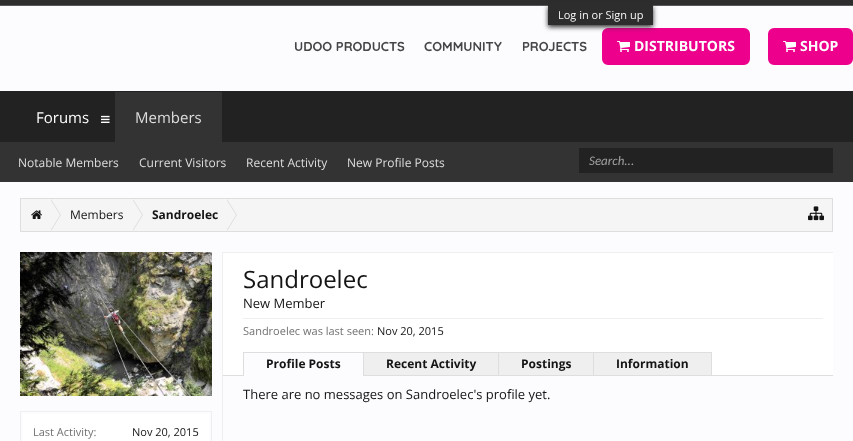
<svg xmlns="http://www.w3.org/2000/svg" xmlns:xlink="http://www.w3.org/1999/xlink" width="853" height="441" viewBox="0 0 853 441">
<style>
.cls-1{font:11px Open Sans;fill:#f5f5f5}
.cls-2{font:300 13px Quicksand;fill:#464646}
.cls-3{font:bold 14px Open Sans;fill:#ffffff}
.cls-4{font:15px Open Sans;fill:#dedede}
.cls-5{font:12px Open Sans;fill:#dedede}
.cls-6{font:15px Open Sans;fill:#ffffff}
.cls-7{font:italic 13px Carlito;fill:#a0a0a0}
.cls-8{font:12px Open Sans;fill:#141414}
.cls-9{font:bold 12px Open Sans;fill:#141414}
.cls-10{font:24px Open Sans;fill:#141414}
.cls-11{font:13px Open Sans;fill:#141414}
.cls-12{font:11px Open Sans;fill:#717171}
.cls-13{font:11px Open Sans;fill:#141414}
</style>
<rect width="100%" height="100%" fill="#222222"/>
<rect fill="#2d2d2d" x="0" y="0" width="853" height="5"/>
<rect fill="#585858" x="0" y="5" width="853" height="1"/>
<rect fill="#fcfcff" x="0" y="6" width="853" height="85"/>
<rect fill="#ec008c" stroke="#ec008c" stroke-width="3" x="603.5" y="29.5" width="145" height="34" rx="4.5"/>
<rect fill="#2d2d2d" filter="blur(2.5px)" x="548" y="7" width="105" height="20"/>
<rect fill="#2d2d2d" x="548" y="5" width="105" height="20"/>
<image xlink:href="image0.png" x="617" y="41" width="13" height="11"/>
<rect fill="#ec008c" stroke="#ec008c" stroke-width="3" x="769.5" y="29.5" width="82" height="34" rx="4.5"/>
<image xlink:href="image0.png" x="783" y="41" width="13" height="11"/>
<rect fill="#333333" x="115" y="92" width="107" height="50"/>
<rect fill="#333333" x="0" y="142" width="853" height="40"/>
<image xlink:href="image1.png" x="101" y="115" width="9" height="8"/>
<rect fill="#222222" x="579" y="148" width="254" height="25"/>
<rect fill="#fcfcff" x="0" y="182" width="853" height="259"/>
<rect fill="#f5f5f5" stroke="#dedede" x="20.5" y="198.5" width="812" height="33"/>
<image xlink:href="image2.png" x="31" y="210" width="11" height="9"/>
<path fill="#dedede" d="M51 231V199L61 215Z"/>
<path fill="#f5f5f5" d="M50 231V199L60 215Z"/>
<path fill="#dedede" d="M133 231V199L143 215Z"/>
<path fill="#f5f5f5" d="M132 231V199L142 215Z"/>
<path fill="#dedede" d="M227 231V199L237 215Z"/>
<path fill="#f5f5f5" d="M226 231V199L236 215Z"/>
<image xlink:href="image3.png" x="808" y="206" width="16" height="15"/>
<rect fill="#efefef" x="223" y="252" width="610" height="1"/>
<rect fill="#ffffff" x="223" y="253" width="610" height="122"/>
<rect fill="#efefef" x="243" y="318" width="580" height="1"/>
<rect fill="#dedede" x="223" y="375" width="610" height="1"/>
<rect fill="#fcfcff" x="244" y="353" width="119" height="23"/>
<rect fill="#dedede" x="243" y="352" width="121" height="1"/>
<rect fill="#dedede" x="243" y="352" width="1" height="24"/>
<rect fill="#efefef" stroke="#dedede" x="363.5" y="352.5" width="135" height="23"/>
<rect fill="#efefef" stroke="#dedede" x="498.5" y="352.5" width="95" height="23"/>
<rect fill="#efefef" stroke="#dedede" x="593.5" y="352.5" width="118" height="23"/>
<rect fill="#efefef" x="222" y="252" width="1" height="189"/>
<image xlink:href="image4.png" x="20" y="252" width="192" height="144"/>
<rect fill="none" stroke="#efefef" x="20.5" y="411.5" width="191" height="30"/>
<rect fill="#ffffff" x="23" y="414" width="186" height="27"/>
<text class="cls-1" x="558" y="19">Log in or Sign up</text>
<text class="cls-2" x="294" y="51">UDOO PRODUCTS</text>
<text class="cls-2" x="424" y="51">COMMUNITY</text>
<text class="cls-2" x="522" y="51">PROJECTS</text>
<text class="cls-3" x="634" y="51">DISTRIBUTORS</text>
<text class="cls-3" x="800" y="51">SHOP</text>
<text class="cls-4" x="135" y="123">Members</text>
<text class="cls-5" x="18" y="167">Notable Members</text>
<text class="cls-5" x="139" y="167">Current Visitors</text>
<text class="cls-5" x="246" y="167">Recent Activity</text>
<text class="cls-5" x="347" y="167">New Profile Posts</text>
<text class="cls-6" x="36" y="123">Forums</text>
<text class="cls-7" x="589" y="165">Search...</text>
<text class="cls-8" x="70" y="219">Members</text>
<text class="cls-9" x="152" y="219">Sandroelec</text>
<text class="cls-10" x="243" y="288">Sandroelec</text>
<text class="cls-11" x="243" y="308">New Member</text>
<text class="cls-12" x="243" y="335">Sandroelec was last seen:</text>
<text class="cls-13" x="377" y="335">Nov 20, 2015</text>
<text class="cls-9" x="266" y="368">Profile Posts</text>
<text class="cls-9" x="386" y="368">Recent Activity</text>
<text class="cls-9" x="521" y="368">Postings</text>
<text class="cls-9" x="616" y="368">Information</text>
<text class="cls-11" x="243" y="399">There are no messages on Sandroelec's profile yet.</text>
<text class="cls-12" x="33" y="436">Last Activity:</text>
<text class="cls-13" x="132" y="436">Nov 20, 2015</text>
</svg>
